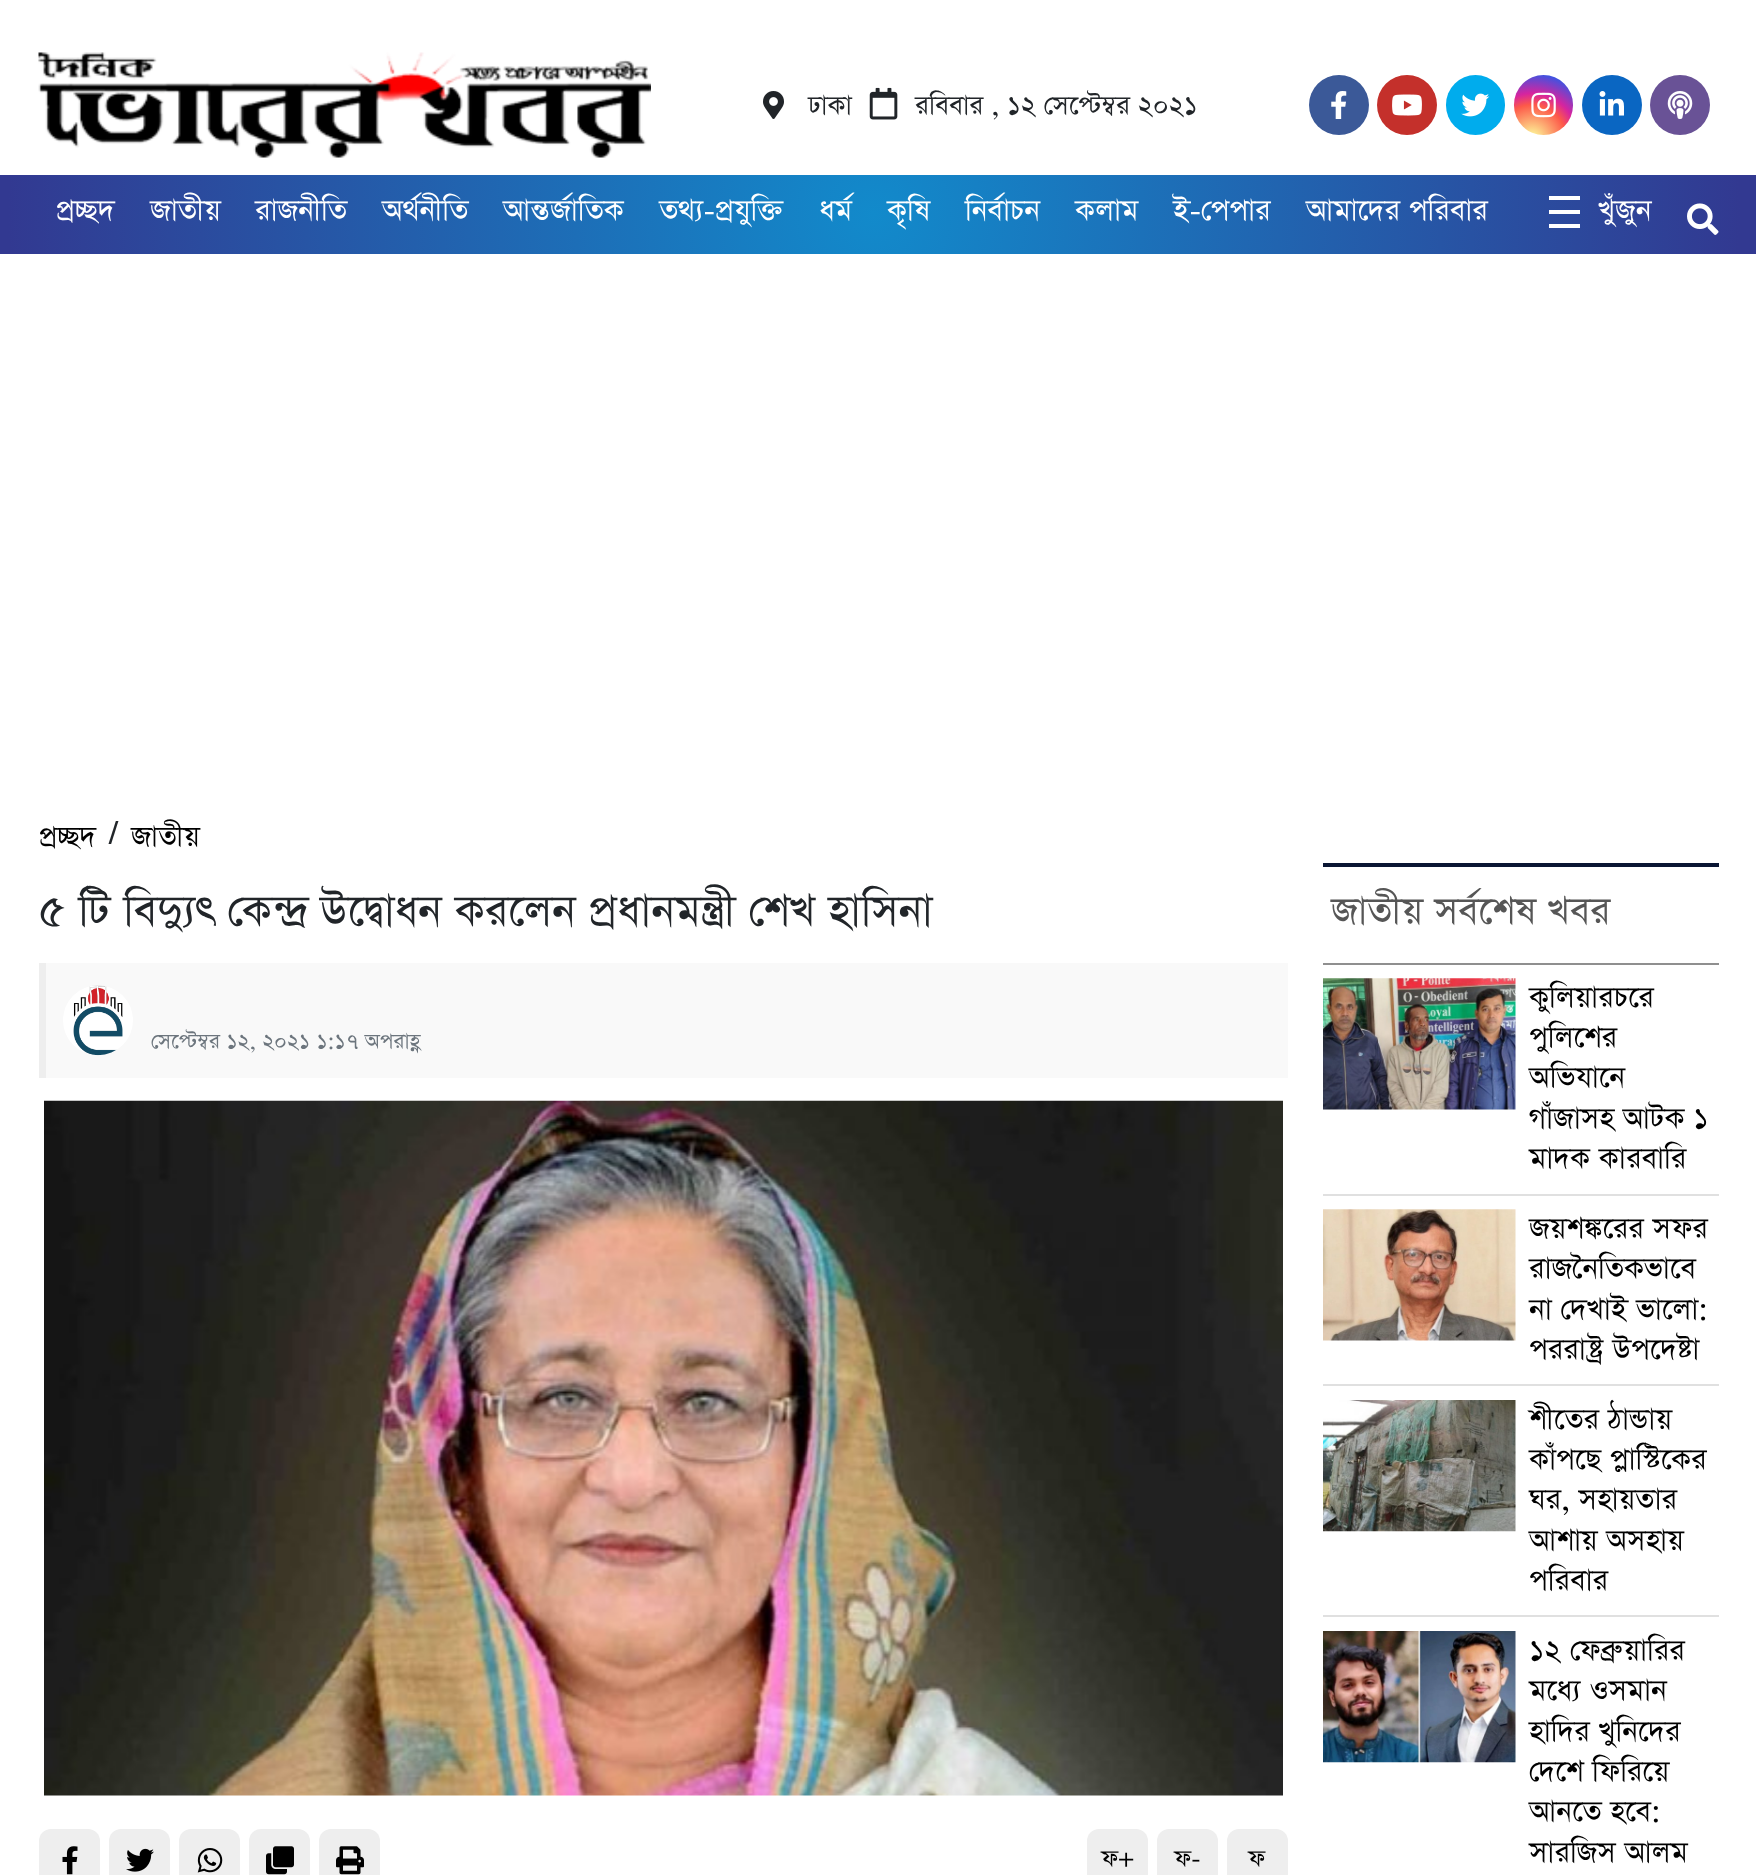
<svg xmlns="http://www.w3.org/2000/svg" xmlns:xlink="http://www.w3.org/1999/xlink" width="1756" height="1875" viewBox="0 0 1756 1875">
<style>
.cls-1{font:31.5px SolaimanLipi;fill:#212529}
.cls-2{font:35px SolaimanLipi;fill:#ffffff}
.cls-3{font:34px SolaimanLipi;fill:#000000}
.cls-4{font:bold 28px SolaimanLipi;fill:#212529}
.cls-5{font:52.5px SolaimanLipi;fill:#212529}
.cls-6{font:25.25px SolaimanLipi;fill:#6c757d}
.cls-7{font:28px SolaimanLipi;fill:#000000}
.cls-8{font:45.5px SolaimanLipi;fill:#565656}
.cls-9{font:35px SolaimanLipi;fill:#000000}
</style>
<defs>
<radialGradient id="g1" gradientUnits="userSpaceOnUse" cx="1532" cy="139" r="76"><stop offset="0" stop-color="#fdf497"/><stop offset="0.05" stop-color="#fdf497"/><stop offset="0.45" stop-color="#fd5949"/><stop offset="0.6" stop-color="#d6249f"/><stop offset="0.9" stop-color="#285aeb"/></radialGradient>
<radialGradient id="g2" gradientUnits="userSpaceOnUse" cx="874" cy="214" r="866"><stop offset="0" stop-color="#128acb"/><stop offset="1" stop-color="#323991"/></radialGradient>
</defs>
<rect width="100%" height="100%" fill="#ffffff"/>
<image xlink:href="image0.png" x="38" y="52" width="613" height="106"/>
<image xlink:href="image1.png" x="763" y="91" width="21" height="28"/>
<image xlink:href="image2.png" x="869" y="87" width="29" height="33"/>
<circle fill="#3b5998" cx="1339" cy="105" r="30"/>
<image xlink:href="image3.png" x="1331" y="91" width="16" height="28"/>
<circle fill="#c4302b" cx="1407" cy="105" r="30"/>
<image xlink:href="image4.png" x="1392" y="94" width="30" height="22"/>
<rect fill="#00aced" x="1446" y="75" width="59" height="60" rx="29.5"/>
<image xlink:href="image5.png" x="1461" y="93" width="29" height="24"/>
<rect fill="url(#g1)" x="1514" y="75" width="59" height="60" rx="29.5"/>
<image xlink:href="image6.png" x="1531" y="92" width="25" height="26"/>
<circle fill="#0a66c2" cx="1612" cy="105" r="30"/>
<image xlink:href="image7.png" x="1599" y="91" width="25" height="25"/>
<circle fill="#695296" cx="1680" cy="105" r="30"/>
<image xlink:href="image8.png" x="1667" y="91" width="26" height="28"/>
<rect fill="url(#g2)" x="0" y="175" width="1756" height="79"/>
<rect fill="#ffffff" x="1549" y="196" width="31" height="4"/>
<rect fill="#ffffff" x="1549" y="210" width="31" height="4"/>
<rect fill="#ffffff" x="1549" y="224" width="31" height="4"/>
<image xlink:href="image9.png" x="1687" y="203" width="32" height="32"/>
<rect fill="#f9f9f9" x="46" y="963" width="1242" height="115"/>
<rect fill="#eeeeee" x="39" y="963" width="7" height="115"/>
<image xlink:href="image10.png" x="63" y="985" width="70" height="71"/>
<image xlink:href="image11.png" x="44" y="1100" width="1239" height="696"/>
<rect fill="#eeeeee" x="39" y="1829" width="61" height="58" rx="12"/>
<image xlink:href="image12.png" x="62" y="1846" width="16" height="29"/>
<rect fill="#eeeeee" x="109" y="1829" width="61" height="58" rx="12"/>
<image xlink:href="image13.png" x="126" y="1848" width="28" height="24"/>
<rect fill="#eeeeee" x="179" y="1829" width="61" height="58" rx="12"/>
<image xlink:href="image14.png" x="197" y="1848" width="26" height="25"/>
<rect fill="#eeeeee" x="249" y="1829" width="61" height="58" rx="12"/>
<image xlink:href="image15.png" x="266" y="1846" width="28" height="29"/>
<rect fill="#eeeeee" x="319" y="1829" width="61" height="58" rx="12"/>
<image xlink:href="image16.png" x="336" y="1846" width="28" height="29"/>
<rect fill="#eeeeee" x="1087" y="1829" width="61" height="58" rx="12"/>
<rect fill="#eeeeee" x="1157" y="1829" width="61" height="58" rx="12"/>
<rect fill="#eeeeee" x="1227" y="1829" width="61" height="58" rx="12"/>
<rect fill="#0a1633" x="1323" y="863" width="396" height="4"/>
<rect fill="#8f8f8f" x="1323" y="963" width="396" height="2"/>
<rect fill="#e0e0e0" x="1323" y="1194" width="396" height="2"/>
<image xlink:href="image17.png" x="1323" y="978" width="193" height="132"/>
<rect fill="#e0e0e0" x="1323" y="1384" width="396" height="2"/>
<image xlink:href="image18.png" x="1323" y="1209" width="193" height="132"/>
<rect fill="#e0e0e0" x="1323" y="1615" width="396" height="2"/>
<image xlink:href="image19.png" x="1323" y="1400" width="193" height="132"/>
<image xlink:href="image20.png" x="1323" y="1631" width="193" height="132"/>
<text class="cls-1" x="808" y="115">ঢাকা</text>
<text class="cls-1" x="915" y="115">রবিবার , ১২ সেপ্টেম্বর ২০২১</text>
<text class="cls-2" x="56" y="221">প্রচ্ছদ</text>
<text class="cls-2" x="150" y="221">জাতীয়</text>
<text class="cls-2" x="255" y="221">রাজনীতি</text>
<text class="cls-2" x="382" y="221">অর্থনীতি</text>
<text class="cls-2" x="503" y="221">আন্তর্জাতিক</text>
<text class="cls-2" x="659" y="221">তথ্য-প্রযুক্তি</text>
<text class="cls-2" x="819" y="221">ধর্ম</text>
<text class="cls-2" x="887" y="221">কৃষি</text>
<text class="cls-2" x="965" y="221">নির্বাচন</text>
<text class="cls-2" x="1075" y="221">কলাম</text>
<text class="cls-2" x="1173" y="221">ই-পেপার</text>
<text class="cls-2" x="1306" y="221">আমাদের পরিবার</text>
<text class="cls-2" x="1598" y="221">খুঁজুন</text>
<text class="cls-3" x="39" y="847">প্রচ্ছদ</text>
<text class="cls-4" x="109" y="841">/</text>
<text class="cls-3" x="131" y="847">জাতীয়</text>
<text class="cls-5" x="39" y="927">৫ টি বিদ্যুৎ কেন্দ্র উদ্বোধন করলেন প্রধানমন্ত্রী শেখ হাসিনা</text>
<text class="cls-6" x="151" y="1049">সেপ্টেম্বর ১২, ২০২১ ১:১৭ অপরাহ্ণ</text>
<text class="cls-7" x="1101" y="1867">ফ+</text>
<text class="cls-7" x="1174" y="1867">ফ-</text>
<text class="cls-7" x="1248" y="1867">ফ</text>
<text class="cls-8" x="1331" y="925">জাতীয় সর্বশেষ খবর</text>
<text class="cls-9"><tspan x="1529" y="1008">কুলিয়ারচরে</tspan><tspan x="1529" y="1048">পুলিশের</tspan><tspan x="1529" y="1088">অভিযানে</tspan><tspan x="1529" y="1129">গাঁজাসহ আটক ১</tspan><tspan x="1529" y="1169">মাদক কারবারি</tspan></text>
<text class="cls-9"><tspan x="1529" y="1239">জয়শঙ্করের সফর</tspan><tspan x="1529" y="1279">রাজনৈতিকভাবে</tspan><tspan x="1529" y="1320">না দেখাই ভালো:</tspan><tspan x="1529" y="1360">পররাষ্ট্র উপদেষ্টা</tspan></text>
<text class="cls-9"><tspan x="1529" y="1430">শীতের ঠান্ডায়</tspan><tspan x="1529" y="1470">কাঁপছে প্লাস্টিকের</tspan><tspan x="1529" y="1510">ঘর, সহায়তার</tspan><tspan x="1529" y="1551">আশায় অসহায়</tspan><tspan x="1529" y="1591">পরিবার</tspan></text>
<text class="cls-9"><tspan x="1529" y="1661">১২ ফেব্রুয়ারির</tspan><tspan x="1529" y="1701">মধ্যে ওসমান</tspan><tspan x="1529" y="1742">হাদির খুনিদের</tspan><tspan x="1529" y="1782">দেশে ফিরিয়ে</tspan><tspan x="1529" y="1822">আনতে হবে:</tspan><tspan x="1529" y="1863">সারজিস আলম</tspan></text>
</svg>
